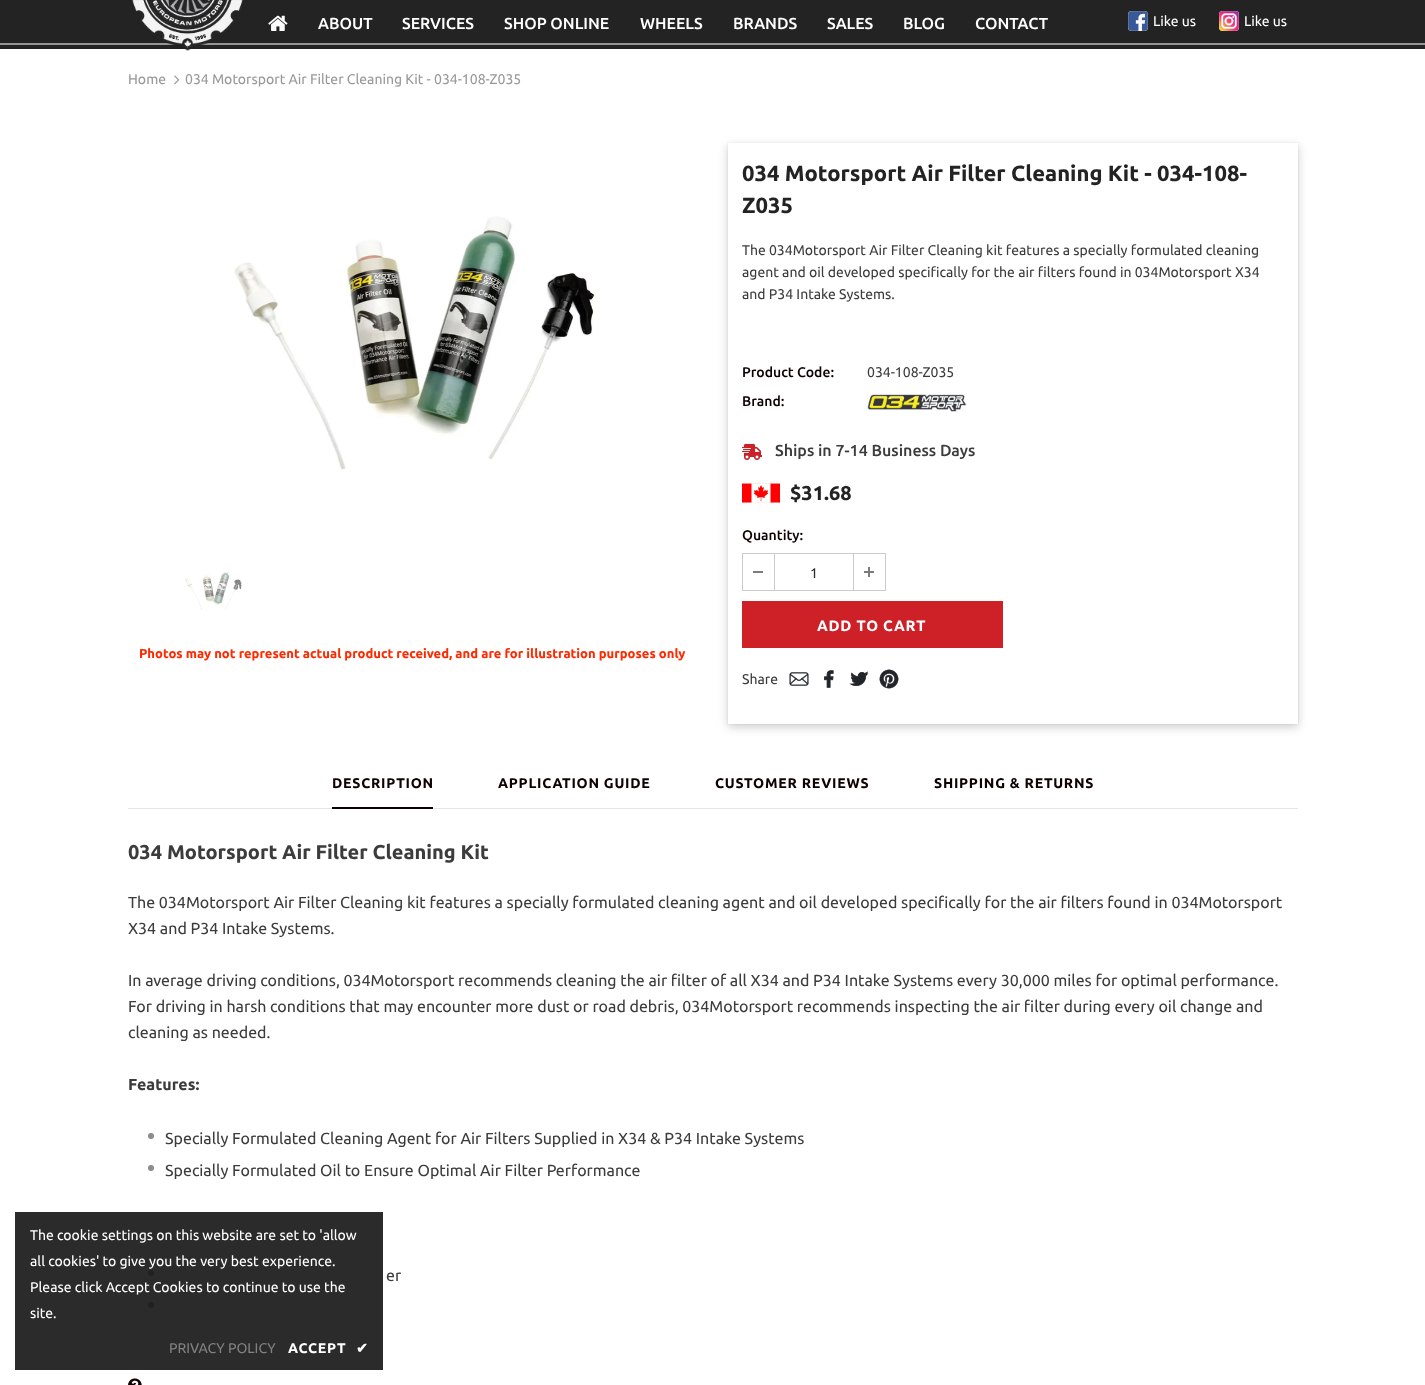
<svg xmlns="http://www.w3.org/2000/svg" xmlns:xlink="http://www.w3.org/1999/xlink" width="1425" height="1385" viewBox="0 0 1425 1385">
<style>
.cls-1{font:500 16px Ubuntu;fill:#ffffff}
.cls-2{font:14px Ubuntu;fill:#ffffff}
.cls-3{font:14px Ubuntu;fill:#999999}
.cls-4{font:bold 13px Ubuntu;fill:#ff2a00}
.cls-5{font:bold 22px Ubuntu;fill:#232323}
.cls-6{font:14px Ubuntu;fill:#3c3c3c}
.cls-7{font:500 14px Ubuntu;fill:#0f0101}
.cls-8{font:500 16px Ubuntu;fill:#3c3c3c}
.cls-9{font:bold 20px Ubuntu;fill:#232323}
.cls-10{font:14px Ubuntu;fill:#2d2d2d}
.cls-11{font:bold 15px Ubuntu;letter-spacing:0.75px;fill:#ffffff}
.cls-12{font:bold 14px Ubuntu;letter-spacing:0.75px;fill:#0f0101}
.cls-13{font:bold 20px Ubuntu;fill:#3c3c3c}
.cls-14{font:16px Ubuntu;fill:#3c3c3c}
.cls-15{font:bold 16px Ubuntu;fill:#3c3c3c}
.cls-16{font:14px Ubuntu;fill:#818181}
.cls-17{font:bold 14px Ubuntu;letter-spacing:0.75px;fill:#ffffff}
.cls-18{font:bold 14px DejaVu Sans;letter-spacing:0.75px;fill:#ffffff}
</style>
<defs>
<clipPath id="clip1"><path d="M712 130H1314V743H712ZM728 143H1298V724H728Z" clip-rule="evenodd"/></clipPath>
</defs>
<rect width="100%" height="100%" fill="#ffffff"/>
<rect fill="#232323" x="0" y="0" width="1425" height="49"/>
<rect fill="#969696" x="0" y="43" width="1425" height="2"/>
<image xlink:href="image0.png" x="132" y="0" width="111" height="51"/>
<image xlink:href="image1.png" x="268" y="15" width="20" height="16"/>
<image xlink:href="image2.png" x="1128" y="11" width="20" height="20"/>
<image xlink:href="image3.png" x="1219" y="11" width="20" height="20"/>
<image xlink:href="image4.png" x="174" y="75" width="6" height="10"/>
<image xlink:href="image5.png" x="234" y="216" width="362" height="255"/>
<image xlink:href="image6.png" x="185" y="571" width="57" height="39"/>
<g clip-path="url(#clip1)">
<rect fill="#7f7f7f" fill-opacity="0.4" filter="blur(5px)" x="728" y="146" width="570" height="581"/>
</g>
<rect fill="none" stroke="#7f7f7f" stroke-opacity="0.04" x="727.5" y="142.5" width="571" height="582"/>
<image xlink:href="image7.png" x="867" y="394" width="100" height="18"/>
<image xlink:href="image8.png" x="742" y="443" width="20" height="17"/>
<image xlink:href="image9.png" x="742" y="483" width="38" height="20"/>
<rect fill="none" stroke="#cbcbcb" x="742.5" y="553.5" width="143" height="37"/>
<rect fill="#cbcbcb" x="774" y="554" width="1" height="36"/>
<rect fill="#7b7b7b" x="753" y="571" width="10" height="2"/>
<rect fill="#cbcbcb" x="853" y="554" width="1" height="36"/>
<rect fill="#7b7b7b" x="864" y="571" width="10" height="2"/>
<rect fill="#7b7b7b" x="868" y="567" width="2" height="10"/>
<rect fill="#cd2027" x="742" y="601" width="261" height="47"/>
<image xlink:href="image10.png" x="789" y="672" width="20" height="14"/>
<image xlink:href="image11.png" x="824" y="670" width="10" height="18"/>
<image xlink:href="image12.png" x="849" y="671" width="20" height="16"/>
<image xlink:href="image13.png" x="879" y="669" width="20" height="20"/>
<rect fill="#e6e6e6" x="128" y="808" width="1170" height="1"/>
<rect fill="#0f0101" x="332" y="807" width="101" height="2"/>
<circle fill="#8c8c8c" cx="151" cy="1136" r="3"/>
<circle fill="#8c8c8c" cx="151" cy="1168" r="3"/>
<circle fill="#8c8c8c" cx="151" cy="1273" r="3"/>
<circle fill="#8c8c8c" cx="151" cy="1305" r="3"/>
<image xlink:href="image14.png" x="128" y="1378" width="14" height="7"/>
<rect fill="#141414" fill-opacity="0.9" x="15" y="1212" width="368" height="158"/>
<text class="cls-1" x="318" y="29">ABOUT</text>
<text class="cls-1" x="402" y="29">SERVICES</text>
<text class="cls-1" x="504" y="29">SHOP ONLINE</text>
<text class="cls-1" x="640" y="29">WHEELS</text>
<text class="cls-1" x="733" y="29">BRANDS</text>
<text class="cls-1" x="827" y="29">SALES</text>
<text class="cls-1" x="903" y="29">BLOG</text>
<text class="cls-1" x="975" y="29">CONTACT</text>
<text class="cls-2" x="1153" y="26">Like us</text>
<text class="cls-2" x="1244" y="26">Like us</text>
<text class="cls-3" x="128" y="84">Home</text>
<text class="cls-3" x="185" y="84">034 Motorsport Air Filter Cleaning Kit - 034-108-Z035</text>
<text class="cls-4" x="139" y="658">Photos may not represent actual product received, and are for illustration purposes only</text>
<text class="cls-5"><tspan x="742" y="181">034 Motorsport Air Filter Cleaning Kit - 034-108-</tspan><tspan x="742" y="213">Z035</tspan></text>
<text class="cls-6"><tspan x="742" y="255">The 034Motorsport Air Filter Cleaning kit features a specially formulated cleaning</tspan><tspan x="742" y="277">agent and oil developed specifically for the air filters found in 034Motorsport X34</tspan><tspan x="742" y="299">and P34 Intake Systems.</tspan></text>
<text class="cls-7" x="742" y="377">Product Code:</text>
<text class="cls-6" x="867" y="377">034-108-Z035</text>
<text class="cls-7" x="742" y="406">Brand:</text>
<text class="cls-8" x="775" y="456">Ships in 7-14 Business Days</text>
<text class="cls-9" x="790" y="500">$31.68</text>
<text class="cls-7" x="742" y="540">Quantity:</text>
<text class="cls-10" x="810" y="578">1</text>
<text class="cls-11" x="817" y="631">ADD TO CART</text>
<text class="cls-6" x="742" y="684">Share</text>
<text class="cls-12" x="332" y="788">DESCRIPTION</text>
<text class="cls-12" x="498" y="788">APPLICATION GUIDE</text>
<text class="cls-12" x="715" y="788">CUSTOMER REVIEWS</text>
<text class="cls-12" x="934" y="788">SHIPPING &amp; RETURNS</text>
<text class="cls-13" x="128" y="859">034 Motorsport Air Filter Cleaning Kit</text>
<text class="cls-14"><tspan x="128" y="908">The 034Motorsport Air Filter Cleaning kit features a specially formulated cleaning agent and oil developed specifically for the air filters found in 034Motorsport</tspan><tspan x="128" y="934">X34 and P34 Intake Systems.</tspan></text>
<text class="cls-14"><tspan x="128" y="986">In average driving conditions, 034Motorsport recommends cleaning the air filter of all X34 and P34 Intake Systems every 30,000 miles for optimal performance.</tspan><tspan x="128" y="1012">For driving in harsh conditions that may encounter more dust or road debris, 034Motorsport recommends inspecting the air filter during every oil change and</tspan><tspan x="128" y="1038">cleaning as needed.</tspan></text>
<text class="cls-15" x="128" y="1090">Features:</text>
<text class="cls-14" x="165" y="1144">Specially Formulated Cleaning Agent for Air Filters Supplied in X34 &amp; P34 Intake Systems</text>
<text class="cls-14" x="165" y="1176">Specially Formulated Oil to Ensure Optimal Air Filter Performance</text>
<text class="cls-14" x="386" y="1281">er</text>
<text class="cls-2"><tspan x="30" y="1240">The cookie settings on this website are set to 'allow</tspan><tspan x="30" y="1266">all cookies' to give you the very best experience.</tspan><tspan x="30" y="1292">Please click Accept Cookies to continue to use the</tspan><tspan x="30" y="1318">site.</tspan></text>
<text class="cls-16" x="169" y="1353">PRIVACY POLICY</text>
<text class="cls-17" x="288" y="1353">ACCEPT</text>
<text class="cls-18" x="356" y="1353">✔</text>
</svg>
